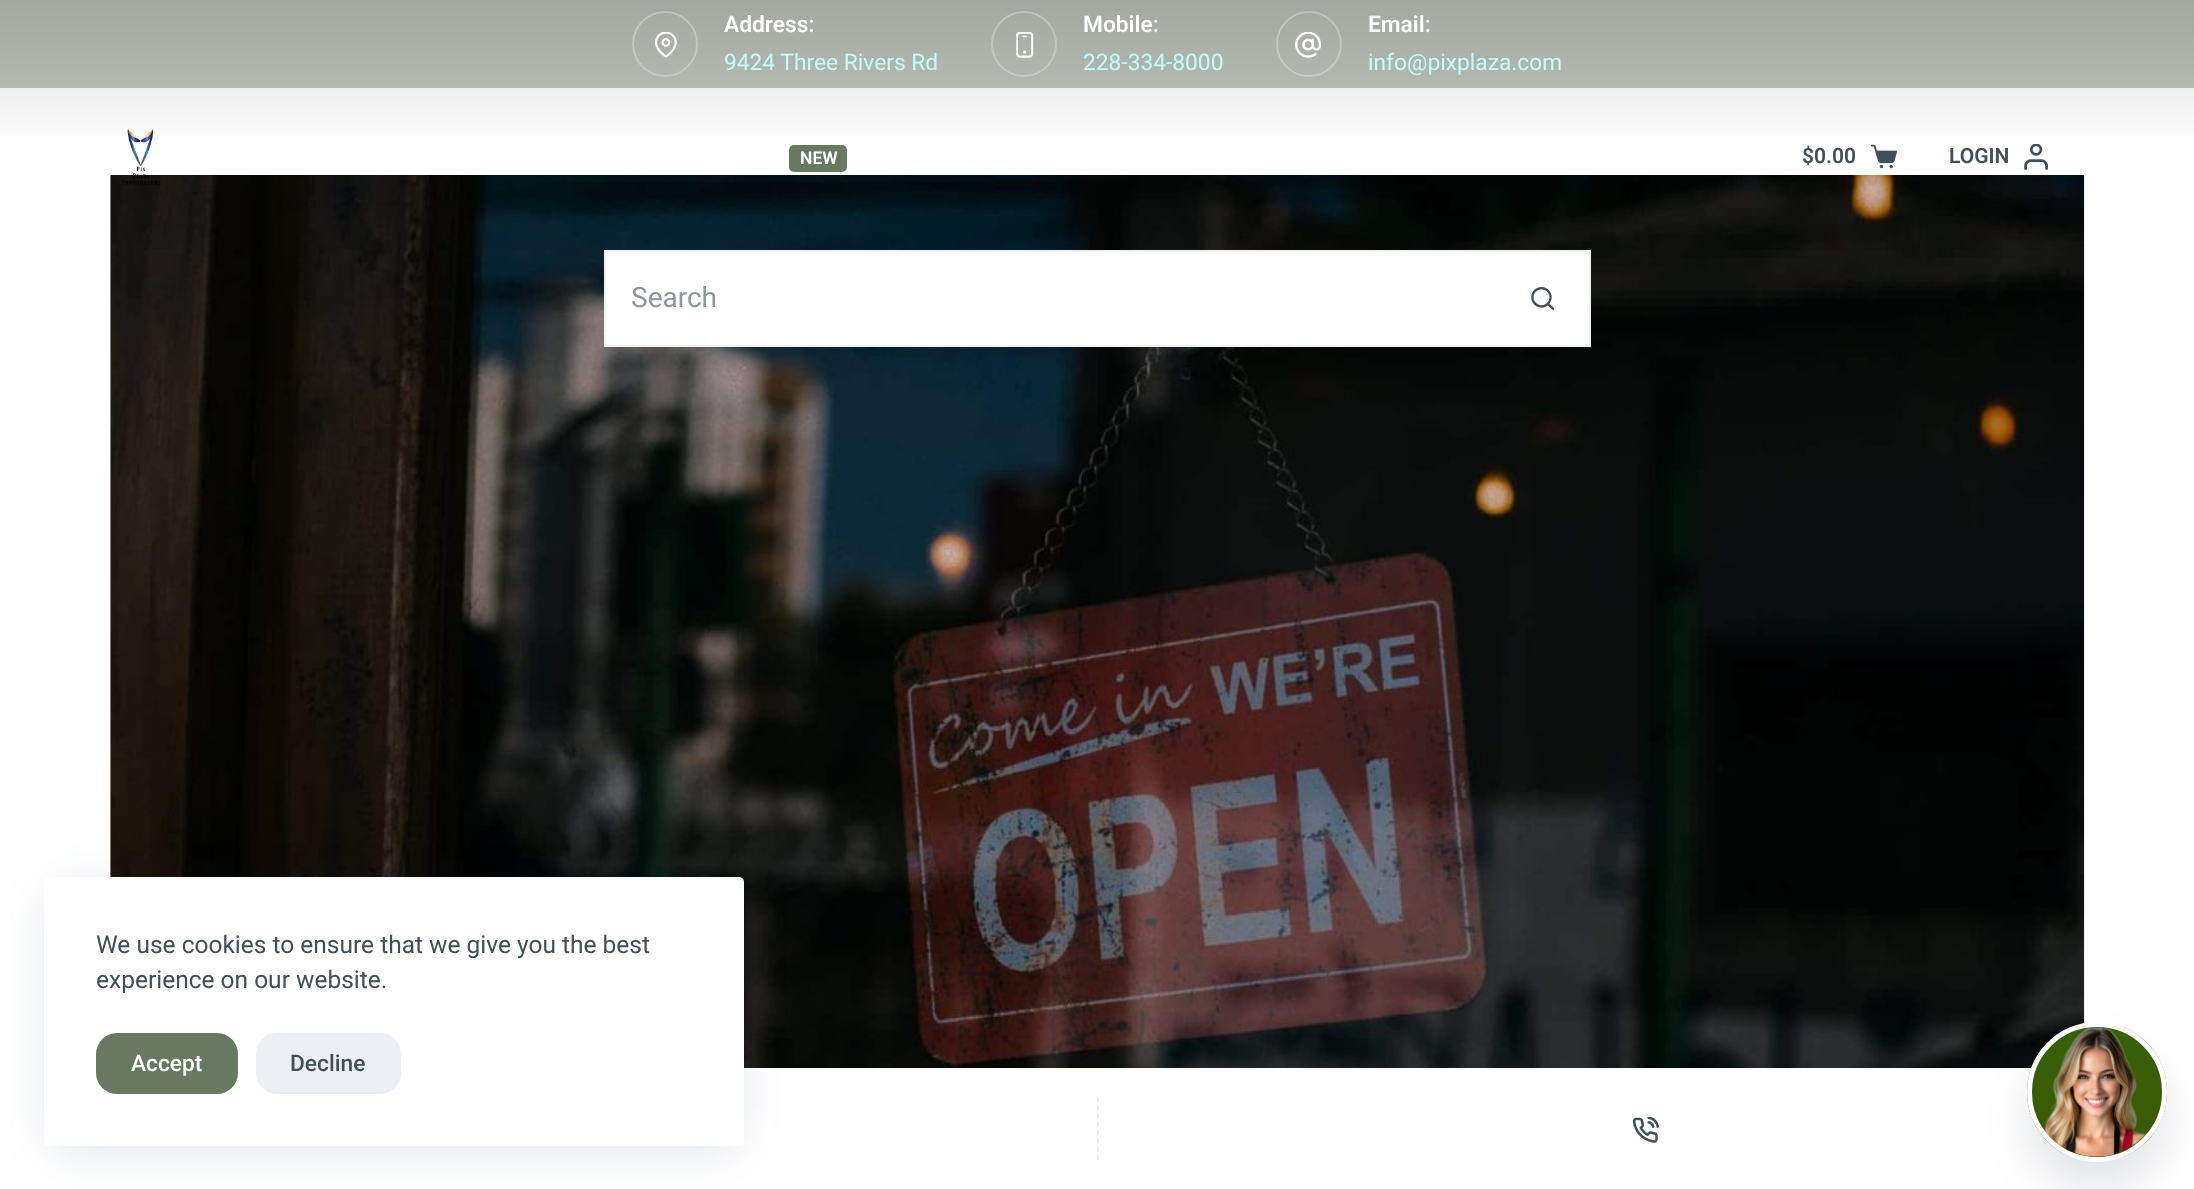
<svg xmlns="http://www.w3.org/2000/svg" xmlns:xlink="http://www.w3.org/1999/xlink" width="2194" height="1189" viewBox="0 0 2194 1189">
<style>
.cls-1{font:600 22.75px Roboto;fill:#ffffff}
.cls-2{font:22.75px Roboto;fill:#c1fdfb}
.cls-3{font:600 17.5px Roboto;fill:#ffffff}
.cls-4{font:600 21px Roboto;fill:#434f58}
.cls-5{font:28px Roboto;fill:#8e959b}
.cls-6{font:24.5px Roboto;fill:#434f58}
.cls-7{font:500 22.75px Roboto;fill:#ffffff}
.cls-8{font:500 22.75px Roboto;fill:#434f58}
</style>
<defs>
<linearGradient id="g1" gradientUnits="userSpaceOnUse" x1="1097" y1="0" x2="1097" y2="368"><stop offset="0" stop-color="#8f8f8f" stop-opacity="0.4"/><stop offset="0.39" stop-color="#8f8f8f" stop-opacity="0"/></linearGradient>
<clipPath id="clip1"><rect x="2027" y="1022" width="140" height="140" rx="70"/></clipPath>
<linearGradient id="g2" gradientUnits="userSpaceOnUse" x1="2097" y1="1027" x2="2097" y2="1157"><stop offset="0" stop-color="#376107"/><stop offset="1" stop-color="#3a5800"/></linearGradient>
</defs>
<rect width="100%" height="100%" fill="#ffffff"/>
<rect fill="url(#g1)" x="0" y="0" width="2194" height="136"/>
<rect fill="#576650" fill-opacity="0.39" x="0" y="0" width="2194" height="88"/>
<circle fill="none" stroke="#dadee4" stroke-opacity="0.5" stroke-width="2" cx="665" cy="44" r="32"/>
<image xlink:href="image0.png" x="655" y="32" width="22" height="26"/>
<circle fill="none" stroke="#dadee4" stroke-opacity="0.5" stroke-width="2" cx="1024" cy="44" r="32"/>
<image xlink:href="image1.png" x="1016" y="32" width="18" height="26"/>
<circle fill="none" stroke="#dadee4" stroke-opacity="0.5" stroke-width="2" cx="1309" cy="44" r="32"/>
<image xlink:href="image2.png" x="1295" y="32" width="26" height="26"/>
<image xlink:href="image7.png" x="110" y="175" width="1975" height="893"/>
<image xlink:href="image3.png" x="121" y="129" width="40" height="56"/>
<rect fill="#697861" x="789" y="145" width="58" height="27" rx="5"/>
<image xlink:href="image4.png" x="1871" y="144" width="26" height="25"/>
<image xlink:href="image5.png" x="2024" y="144" width="25" height="26"/>
<rect fill="#ffffff" x="606" y="252" width="983" height="93"/>
<rect fill="#f1f1f1" x="604" y="250" width="987" height="2"/>
<rect fill="#f1f1f1" x="604" y="345" width="891" height="2"/>
<rect fill="#f1f1f1" x="604" y="250" width="2" height="97"/>
<rect fill="#f1f1f1" x="1589" y="250" width="2" height="97"/>
<rect fill="#f1f1f1" x="1495" y="345" width="96" height="2"/>
<image xlink:href="image6.png" x="1531" y="287" width="23" height="23"/>
<rect fill="#223865" fill-opacity="0.15" filter="blur(26px)" x="53" y="894" width="682" height="252"/>
<rect fill="#ffffff" x="44" y="877" width="700" height="269" rx="5"/>
<rect fill="#697861" x="96" y="1033" width="142" height="61" rx="21"/>
<rect fill="#eceff3" x="256" y="1033" width="145" height="61" rx="21"/>
<path fill="none" stroke="#eeeeee" stroke-width="1.8" stroke-dasharray="5.25 2.99" d="M1098 1097V1160"/>
<image xlink:href="image8.png" x="1633" y="1117" width="26" height="26"/>
<rect fill="#545f6f" fill-opacity="0.16" filter="blur(21px)" x="2027" y="1050" width="140" height="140" rx="70"/>
<g clip-path="url(#clip1)">
<rect fill="url(#g2)" x="2027" y="1027" width="140" height="130"/>
</g>
<circle fill="none" stroke="#ffffff" stroke-width="5" cx="2097" cy="1092" r="67.5"/>
<image xlink:href="image9.png" x="2044" y="1027" width="102" height="130"/>
<text class="cls-1" x="724" y="32">Address:</text>
<text class="cls-2" x="724" y="70">9424 Three Rivers Rd</text>
<text class="cls-1" x="1083" y="32">Mobile:</text>
<text class="cls-2" x="1083" y="70">228-334-8000</text>
<text class="cls-1" x="1368" y="32">Email:</text>
<text class="cls-2" x="1368" y="70">info@pixplaza.com</text>
<text class="cls-3" x="800" y="164">NEW</text>
<text class="cls-4" x="1802" y="163">$0.00</text>
<text class="cls-4" x="1949" y="163">LOGIN</text>
<text class="cls-5" x="631" y="307">Search</text>
<text class="cls-6"><tspan x="96" y="953">We use cookies to ensure that we give you the best</tspan><tspan x="96" y="988">experience on our website.</tspan></text>
<text class="cls-7" x="131" y="1071">Accept</text>
<text class="cls-8" x="290" y="1071">Decline</text>
</svg>
